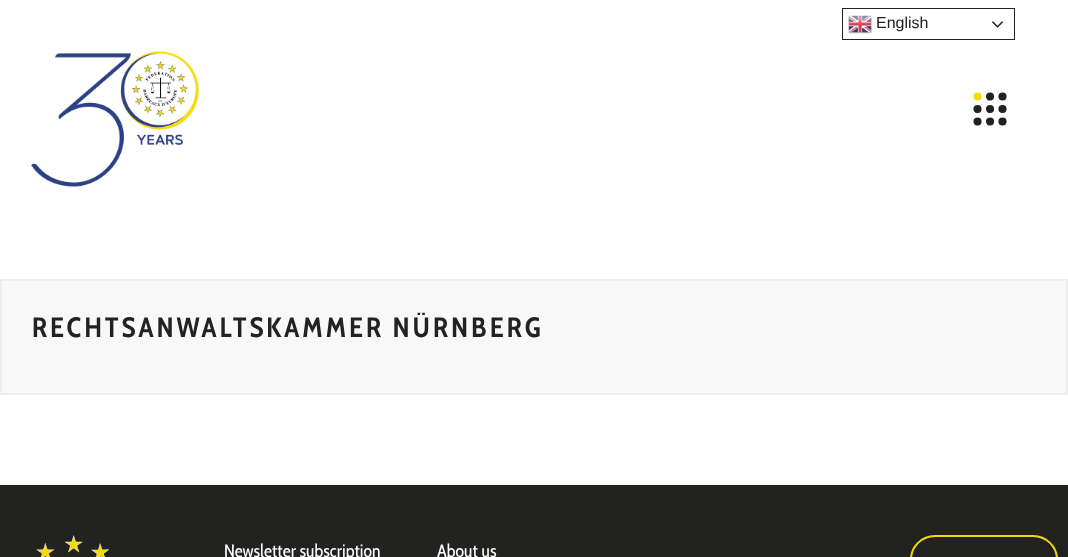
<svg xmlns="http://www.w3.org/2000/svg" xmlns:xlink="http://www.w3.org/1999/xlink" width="1068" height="557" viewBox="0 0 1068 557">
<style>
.cls-1{font:16px Liberation Sans;fill:#222221}
.cls-2{font:bold 28px Cabin Condensed;letter-spacing:3px;fill:#222221}
.cls-3{font:18px Cabin Condensed;fill:#ffffff}
</style>
<rect width="100%" height="100%" fill="#ffffff"/>
<rect fill="none" stroke="#222221" x="842.5" y="8.5" width="172" height="31"/>
<image xlink:href="image0.png" x="848" y="15" width="24" height="19"/>
<image xlink:href="image1.png" x="992" y="21" width="11" height="7"/>
<image xlink:href="image2.png" x="31" y="51" width="168" height="136"/>
<image xlink:href="image3.png" x="973" y="92" width="34" height="34"/>
<rect fill="#f8f8f8" stroke="#eeeeee" stroke-width="2" x="1" y="280" width="1066" height="114"/>
<rect fill="#222221" x="0" y="485" width="1068" height="72"/>
<image xlink:href="image4.png" x="36" y="535" width="74" height="22"/>
<rect fill="none" stroke="#f6dc00" stroke-width="2" x="911" y="536" width="146" height="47" rx="24"/>
<text class="cls-1" x="876" y="28">English</text>
<text class="cls-2" x="32" y="337">RECHTSANWALTSKAMMER NÜRNBERG</text>
<text class="cls-3" x="224" y="557">Newsletter subscription</text>
<text class="cls-3" x="437" y="557">About us</text>
</svg>
